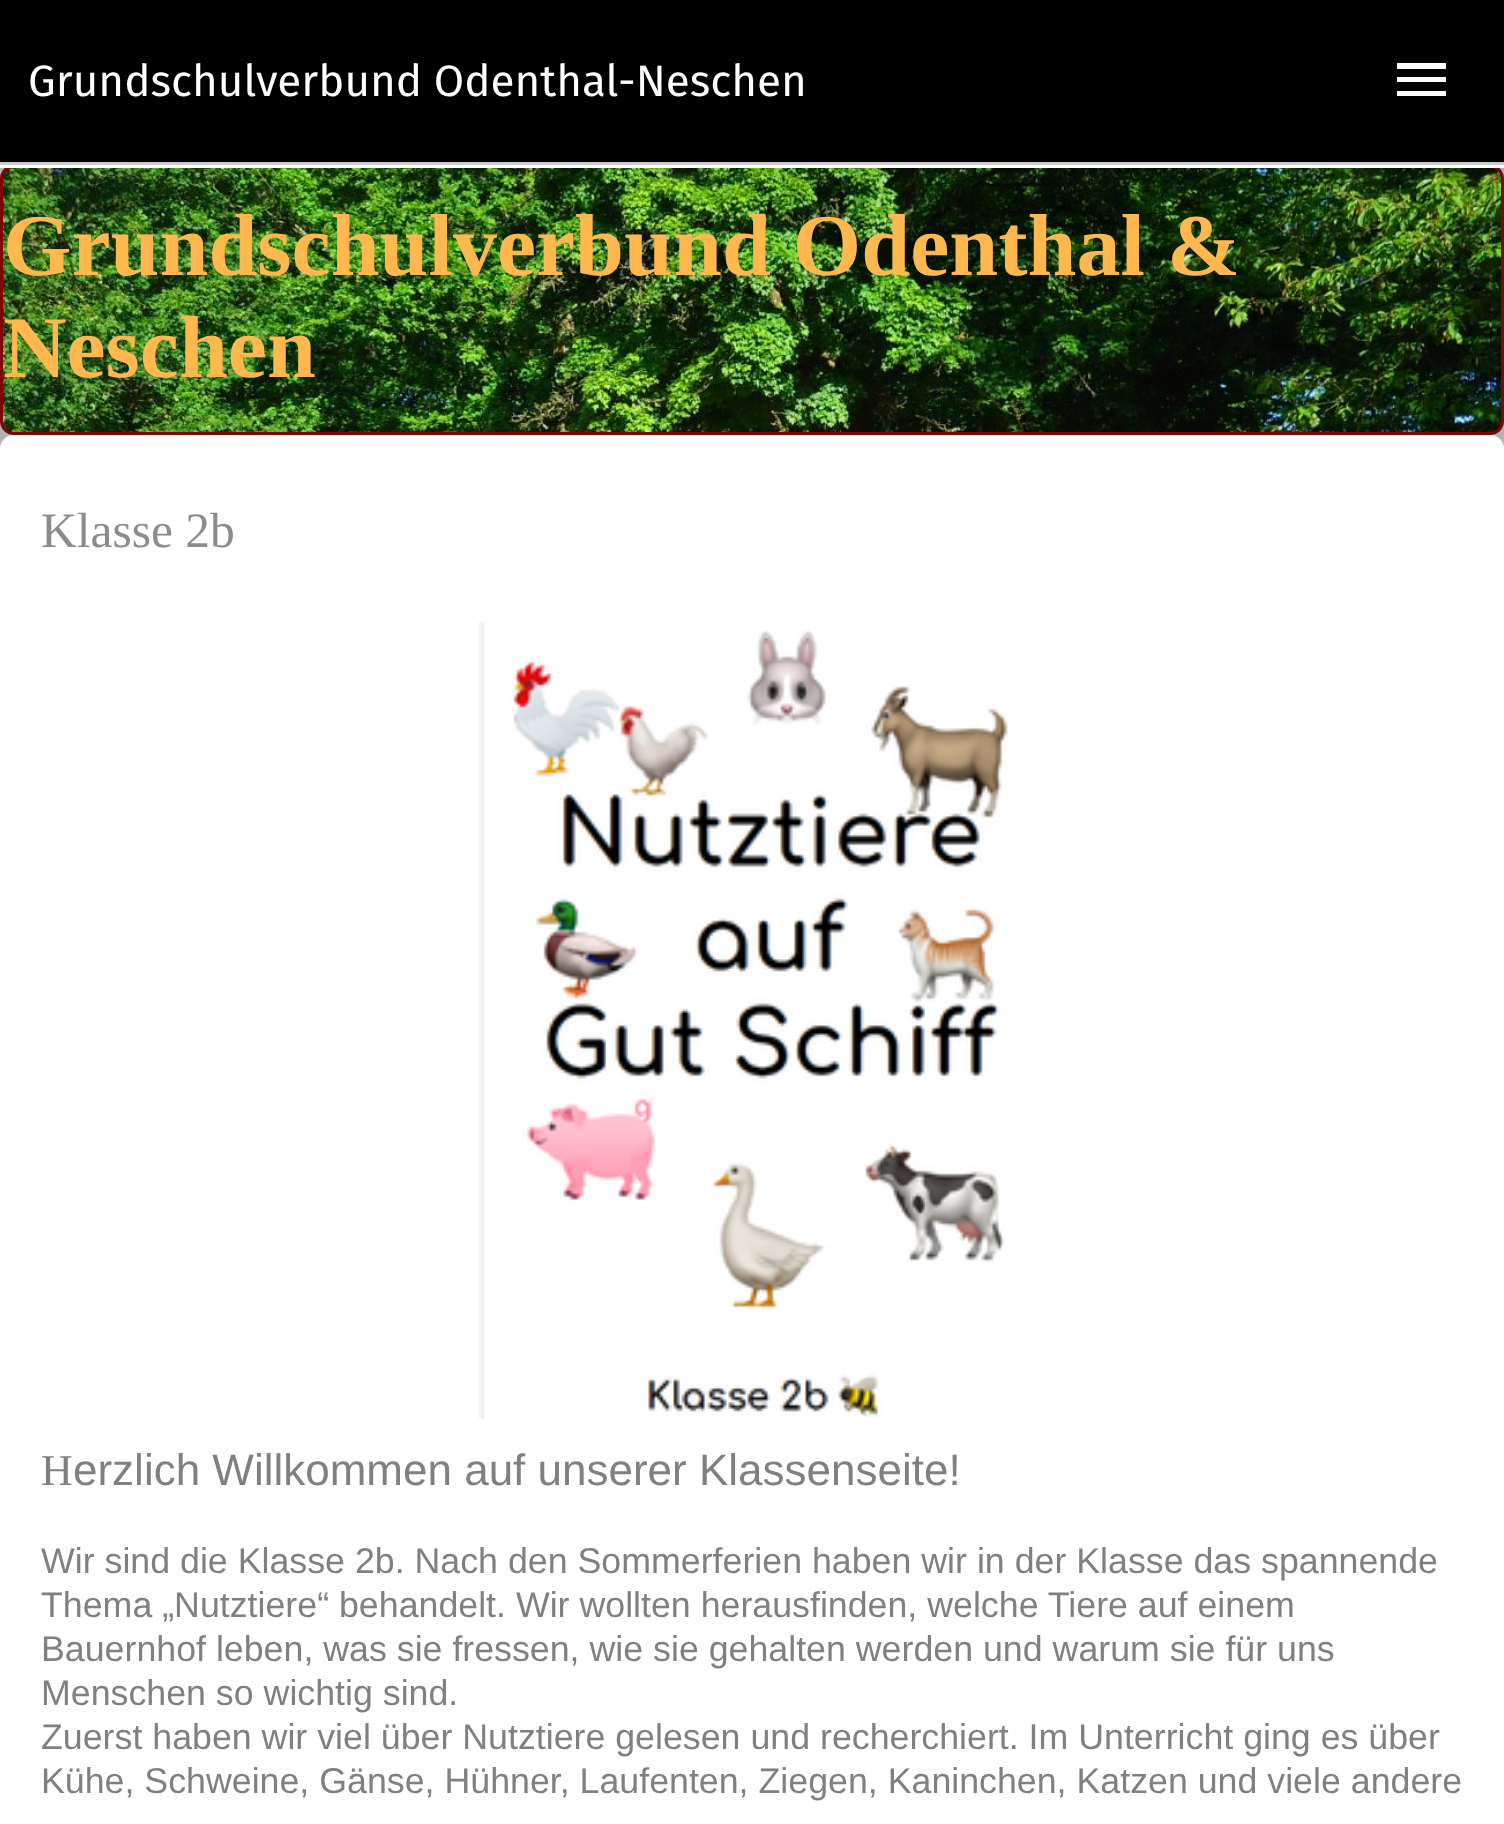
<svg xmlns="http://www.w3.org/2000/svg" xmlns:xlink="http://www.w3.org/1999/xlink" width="1504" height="1824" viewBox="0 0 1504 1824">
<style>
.cls-1{font:44px Fira Sans;fill:#ffffff}
.cls-2{font:bold 88px Liberation Serif;fill:#ffb84d}
.cls-3{font:49.5px Liberation Serif;fill:#8c8c8c}
.cls-4{font:44px Liberation Serif;fill:#808080}
.cls-5{font:44px Liberation Sans;fill:#808080}
.cls-6{font:35.75px Liberation Sans;fill:#808080}
</style>
<rect width="100%" height="100%" fill="#b3b3b3"/>
<rect fill="#000000" x="0" y="0" width="1504" height="162"/>
<rect fill="#cccccc" x="0" y="162" width="1504" height="3"/>
<image xlink:href="image0.png" x="2" y="168" width="1500" height="267"/>
<rect fill="none" stroke="#800508" stroke-width="3" x="1.5" y="166.5" width="1501" height="267" rx="12.5"/>
<rect fill="#ffffff" x="0" y="165" width="1504" height="3"/>
<path fill="#ffffff" d="M1397 96H1446V91H1397ZM1397 82H1446V77H1397ZM1397 63V69H1446V63Z"/>
<rect fill="#ffffff" x="0" y="435" width="1504" height="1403" rx="14"/>
<image xlink:href="image1.png" x="478" y="621" width="530" height="798"/>
<text class="cls-1" x="28" y="96">Grundschulverbund Odenthal-Neschen</text>
<text class="cls-2"><tspan x="3" y="275">Grundschulverbund Odenthal &amp;</tspan><tspan x="3" y="377">Neschen</tspan></text>
<text class="cls-3" x="41" y="547">Klasse 2b</text>
<text class="cls-4" x="41" y="1485">H</text>
<text class="cls-5" x="73" y="1485">erzlich Willkommen auf unserer Klassenseite!</text>
<text class="cls-6"><tspan x="41" y="1573">Wir sind die Klasse 2b. Nach den Sommerferien haben wir in der Klasse das spannende</tspan><tspan x="41" y="1617">Thema „Nutztiere“ behandelt. Wir wollten herausfinden, welche Tiere auf einem</tspan><tspan x="41" y="1661">Bauernhof leben, was sie fressen, wie sie gehalten werden und warum sie für uns</tspan><tspan x="41" y="1705">Menschen so wichtig sind.</tspan><tspan x="41" y="1749">Zuerst haben wir viel über Nutztiere gelesen und recherchiert. Im Unterricht ging es über</tspan><tspan x="41" y="1793">Kühe, Schweine, Gänse, Hühner, Laufenten, Ziegen, Kaninchen, Katzen und viele andere</tspan></text>
</svg>
